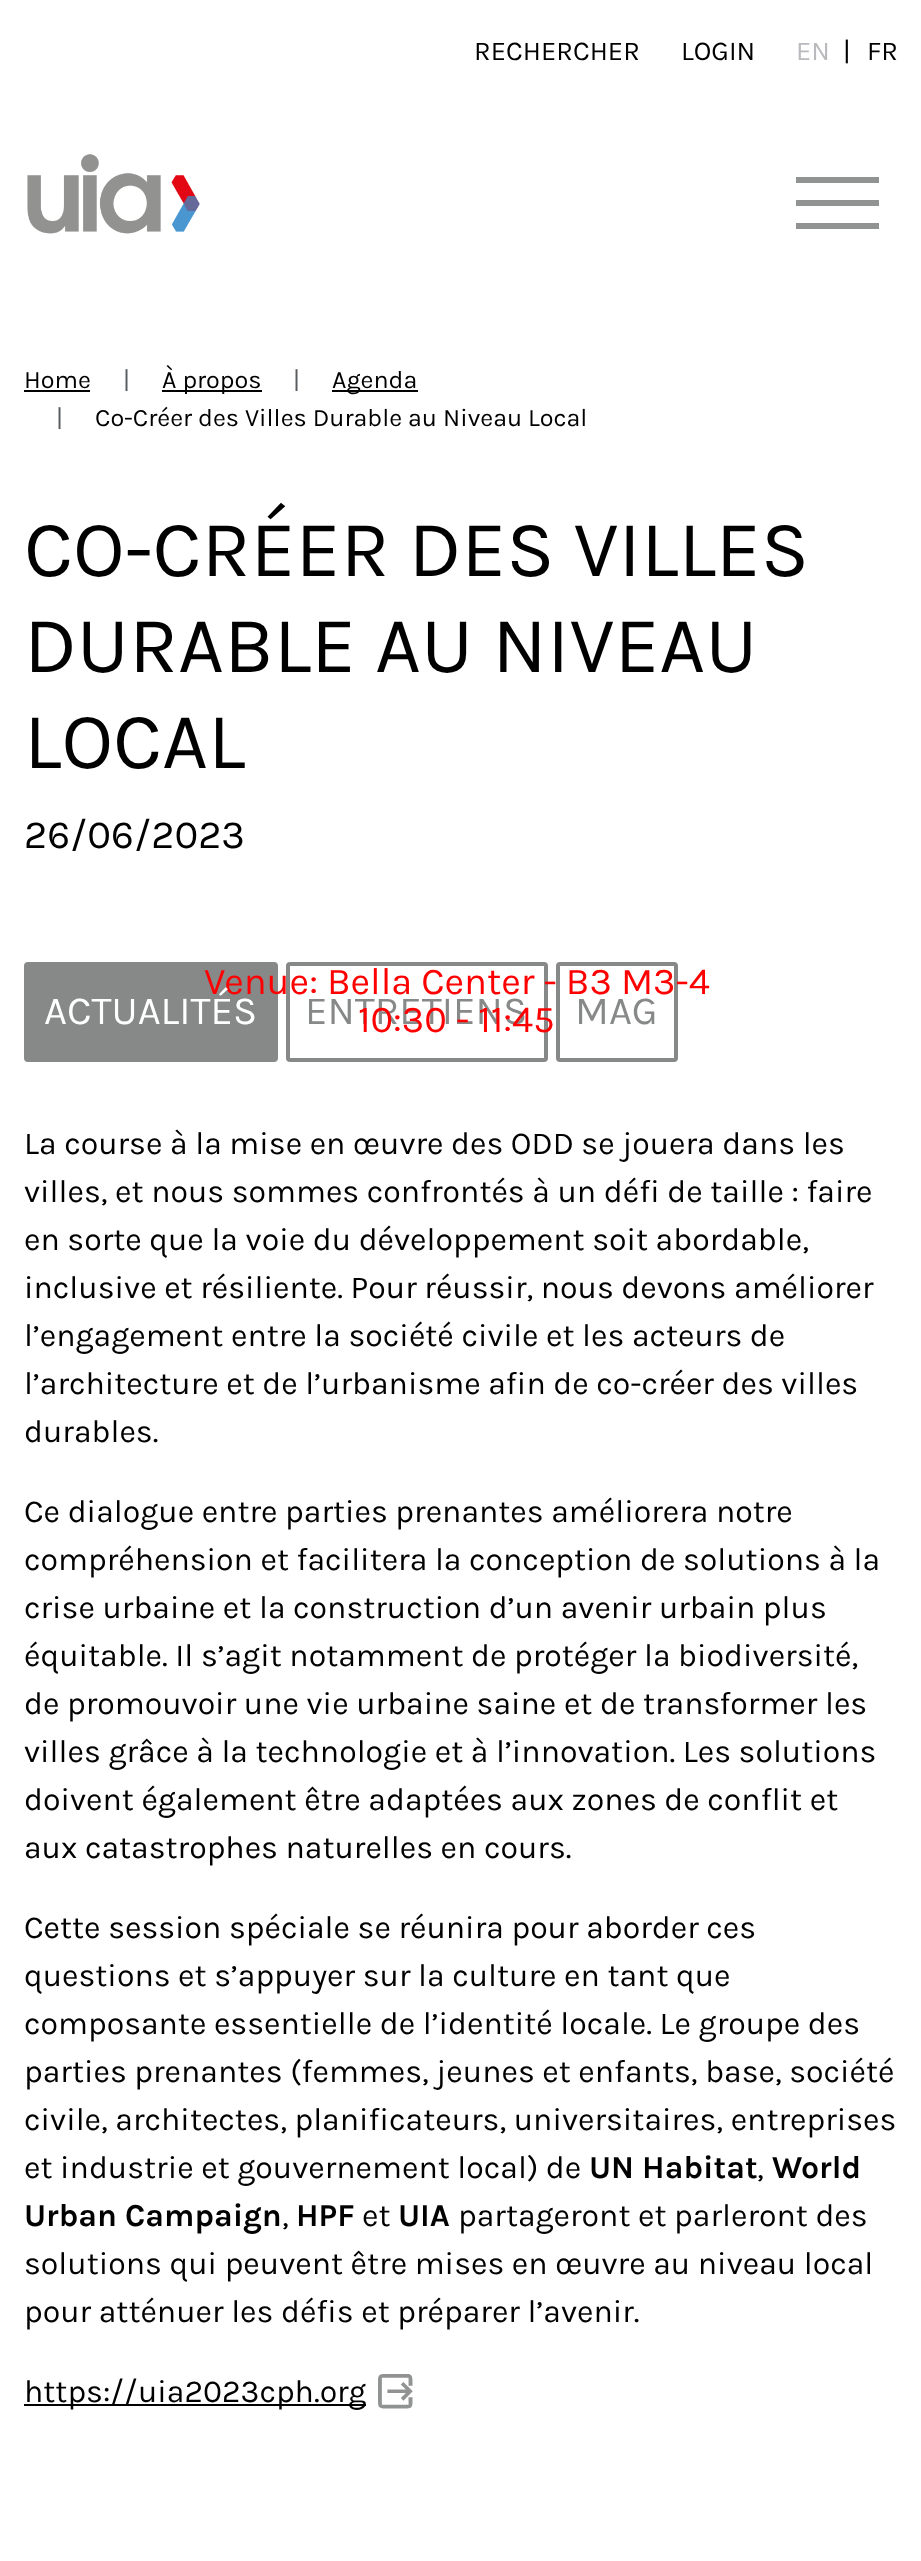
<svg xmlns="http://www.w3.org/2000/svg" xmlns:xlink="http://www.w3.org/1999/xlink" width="921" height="2561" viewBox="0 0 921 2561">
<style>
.cls-1{font:27.25px Karla;fill:#000000}
.cls-2{font:27.25px Karla;fill:#b9b9be}
.cls-3{font:25.1px Karla;fill:#000000}
.cls-4{font:25.1px Karla;fill:#595c5f}
.cls-5{font:80px Karla;fill:#000000}
.cls-6{font:40px Karla;fill:#000000}
.cls-7{font:38px Karla;fill:#ff0000}
.cls-8{font:32px Karla;fill:#000000}
.cls-9{font:bold 32px Karla;fill:#000000}
.cls-10{font:40px Karla;fill:#ffffff}
.cls-11{font:40px Karla;fill:#878988}
</style>
<rect width="100%" height="100%" fill="#ffffff"/>
<image xlink:href="image0.png" x="27" y="154" width="173" height="80"/>
<rect fill="#919392" x="796" y="177" width="83" height="6"/>
<rect fill="#919392" x="796" y="200" width="83" height="6"/>
<rect fill="#919392" x="796" y="223" width="83" height="6"/>
<rect fill="#000000" x="24" y="390" width="66" height="2"/>
<rect fill="#000000" x="162" y="390" width="100" height="2"/>
<rect fill="#000000" x="332" y="390" width="86" height="2"/>
<rect fill="#000000" x="24" y="2404" width="342" height="2"/>
<image xlink:href="image1.png" x="378" y="2374" width="35" height="35"/>
<rect fill="#878988" stroke="#878988" stroke-width="4" x="26" y="964" width="250" height="96" rx="2"/>
<rect fill="none" stroke="#878988" stroke-width="4" x="288" y="964" width="258" height="96" rx="2"/>
<rect fill="none" stroke="#878988" stroke-width="4" x="558" y="964" width="118" height="96" rx="2"/>
<text class="cls-1" x="474" y="60">RECHERCHER</text>
<text class="cls-1" x="681" y="60">LOGIN</text>
<text class="cls-2" x="796" y="60">EN</text>
<text class="cls-1" x="843" y="60">|</text>
<text class="cls-1" x="867" y="60">FR</text>
<text class="cls-3" x="24" y="388">Home</text>
<text class="cls-4" x="123" y="388">|</text>
<text class="cls-3" x="162" y="388">À propos</text>
<text class="cls-4" x="293" y="388">|</text>
<text class="cls-3" x="332" y="388">Agenda</text>
<text class="cls-4" x="56" y="426">|</text>
<text class="cls-3" x="95" y="426">Co-Créer des Villes Durable au Niveau Local</text>
<text class="cls-5"><tspan x="24" y="576">CO-CRÉER DES VILLES</tspan><tspan x="24" y="672">DURABLE AU NIVEAU</tspan><tspan x="24" y="768">LOCAL</tspan></text>
<text class="cls-6" x="24" y="848">26/06/2023</text>
<text class="cls-7" x="204" y="994">Venue: Bella Center - B3 M3-4</text>
<text class="cls-8"><tspan x="24" y="1154">La course à la mise en œuvre des ODD se jouera dans les</tspan><tspan x="24" y="1202">villes, et nous sommes confrontés à un défi de taille : faire</tspan><tspan x="24" y="1250">en sorte que la voie du développement soit abordable,</tspan><tspan x="24" y="1298">inclusive et résiliente. Pour réussir, nous devons améliorer</tspan><tspan x="24" y="1346">l’engagement entre la société civile et les acteurs de</tspan><tspan x="24" y="1394">l’architecture et de l’urbanisme afin de co-créer des villes</tspan><tspan x="24" y="1442">durables.</tspan></text>
<text class="cls-8"><tspan x="24" y="1522">Ce dialogue entre parties prenantes améliorera notre</tspan><tspan x="24" y="1570">compréhension et facilitera la conception de solutions à la</tspan><tspan x="24" y="1618">crise urbaine et la construction d’un avenir urbain plus</tspan><tspan x="24" y="1666">équitable. Il s’agit notamment de protéger la biodiversité,</tspan><tspan x="24" y="1714">de promouvoir une vie urbaine saine et de transformer les</tspan><tspan x="24" y="1762">villes grâce à la technologie et à l’innovation. Les solutions</tspan><tspan x="24" y="1810">doivent également être adaptées aux zones de conflit et</tspan><tspan x="24" y="1858">aux catastrophes naturelles en cours.</tspan></text>
<text class="cls-8"><tspan x="24" y="1938">Cette session spéciale se réunira pour aborder ces</tspan><tspan x="24" y="1986">questions et s’appuyer sur la culture en tant que</tspan><tspan x="24" y="2034">composante essentielle de l’identité locale. Le groupe des</tspan><tspan x="24" y="2082">parties prenantes (femmes, jeunes et enfants, base, société</tspan><tspan x="24" y="2130">civile, architectes, planificateurs, universitaires, entreprises</tspan><tspan x="24" y="2178">et industrie et gouvernement local) de</tspan></text>
<text class="cls-9" x="589" y="2178">UN Habitat</text>
<text class="cls-8" x="757" y="2178">,</text>
<text class="cls-9" x="772" y="2178">World</text>
<text class="cls-9" x="24" y="2226">Urban Campaign</text>
<text class="cls-8" x="282" y="2226">,</text>
<text class="cls-9" x="296" y="2226">HPF</text>
<text class="cls-8" x="362" y="2226">et</text>
<text class="cls-9" x="398" y="2226">UIA</text>
<text class="cls-8" x="458" y="2226">partageront et parleront des</text>
<text class="cls-8"><tspan x="24" y="2274">solutions qui peuvent être mises en œuvre au niveau local</tspan><tspan x="24" y="2322">pour atténuer les défis et préparer l’avenir.</tspan></text>
<text class="cls-8" x="24" y="2402">https://uia2023cph.org</text>
<text class="cls-10" x="44" y="1024">ACTUALITÉS</text>
<text class="cls-11" x="305" y="1024">ENTRETIENS</text>
<text class="cls-7" x="358" y="1032">10:30 - 11:45</text>
<text class="cls-11" x="575" y="1024">MAG</text>
</svg>
